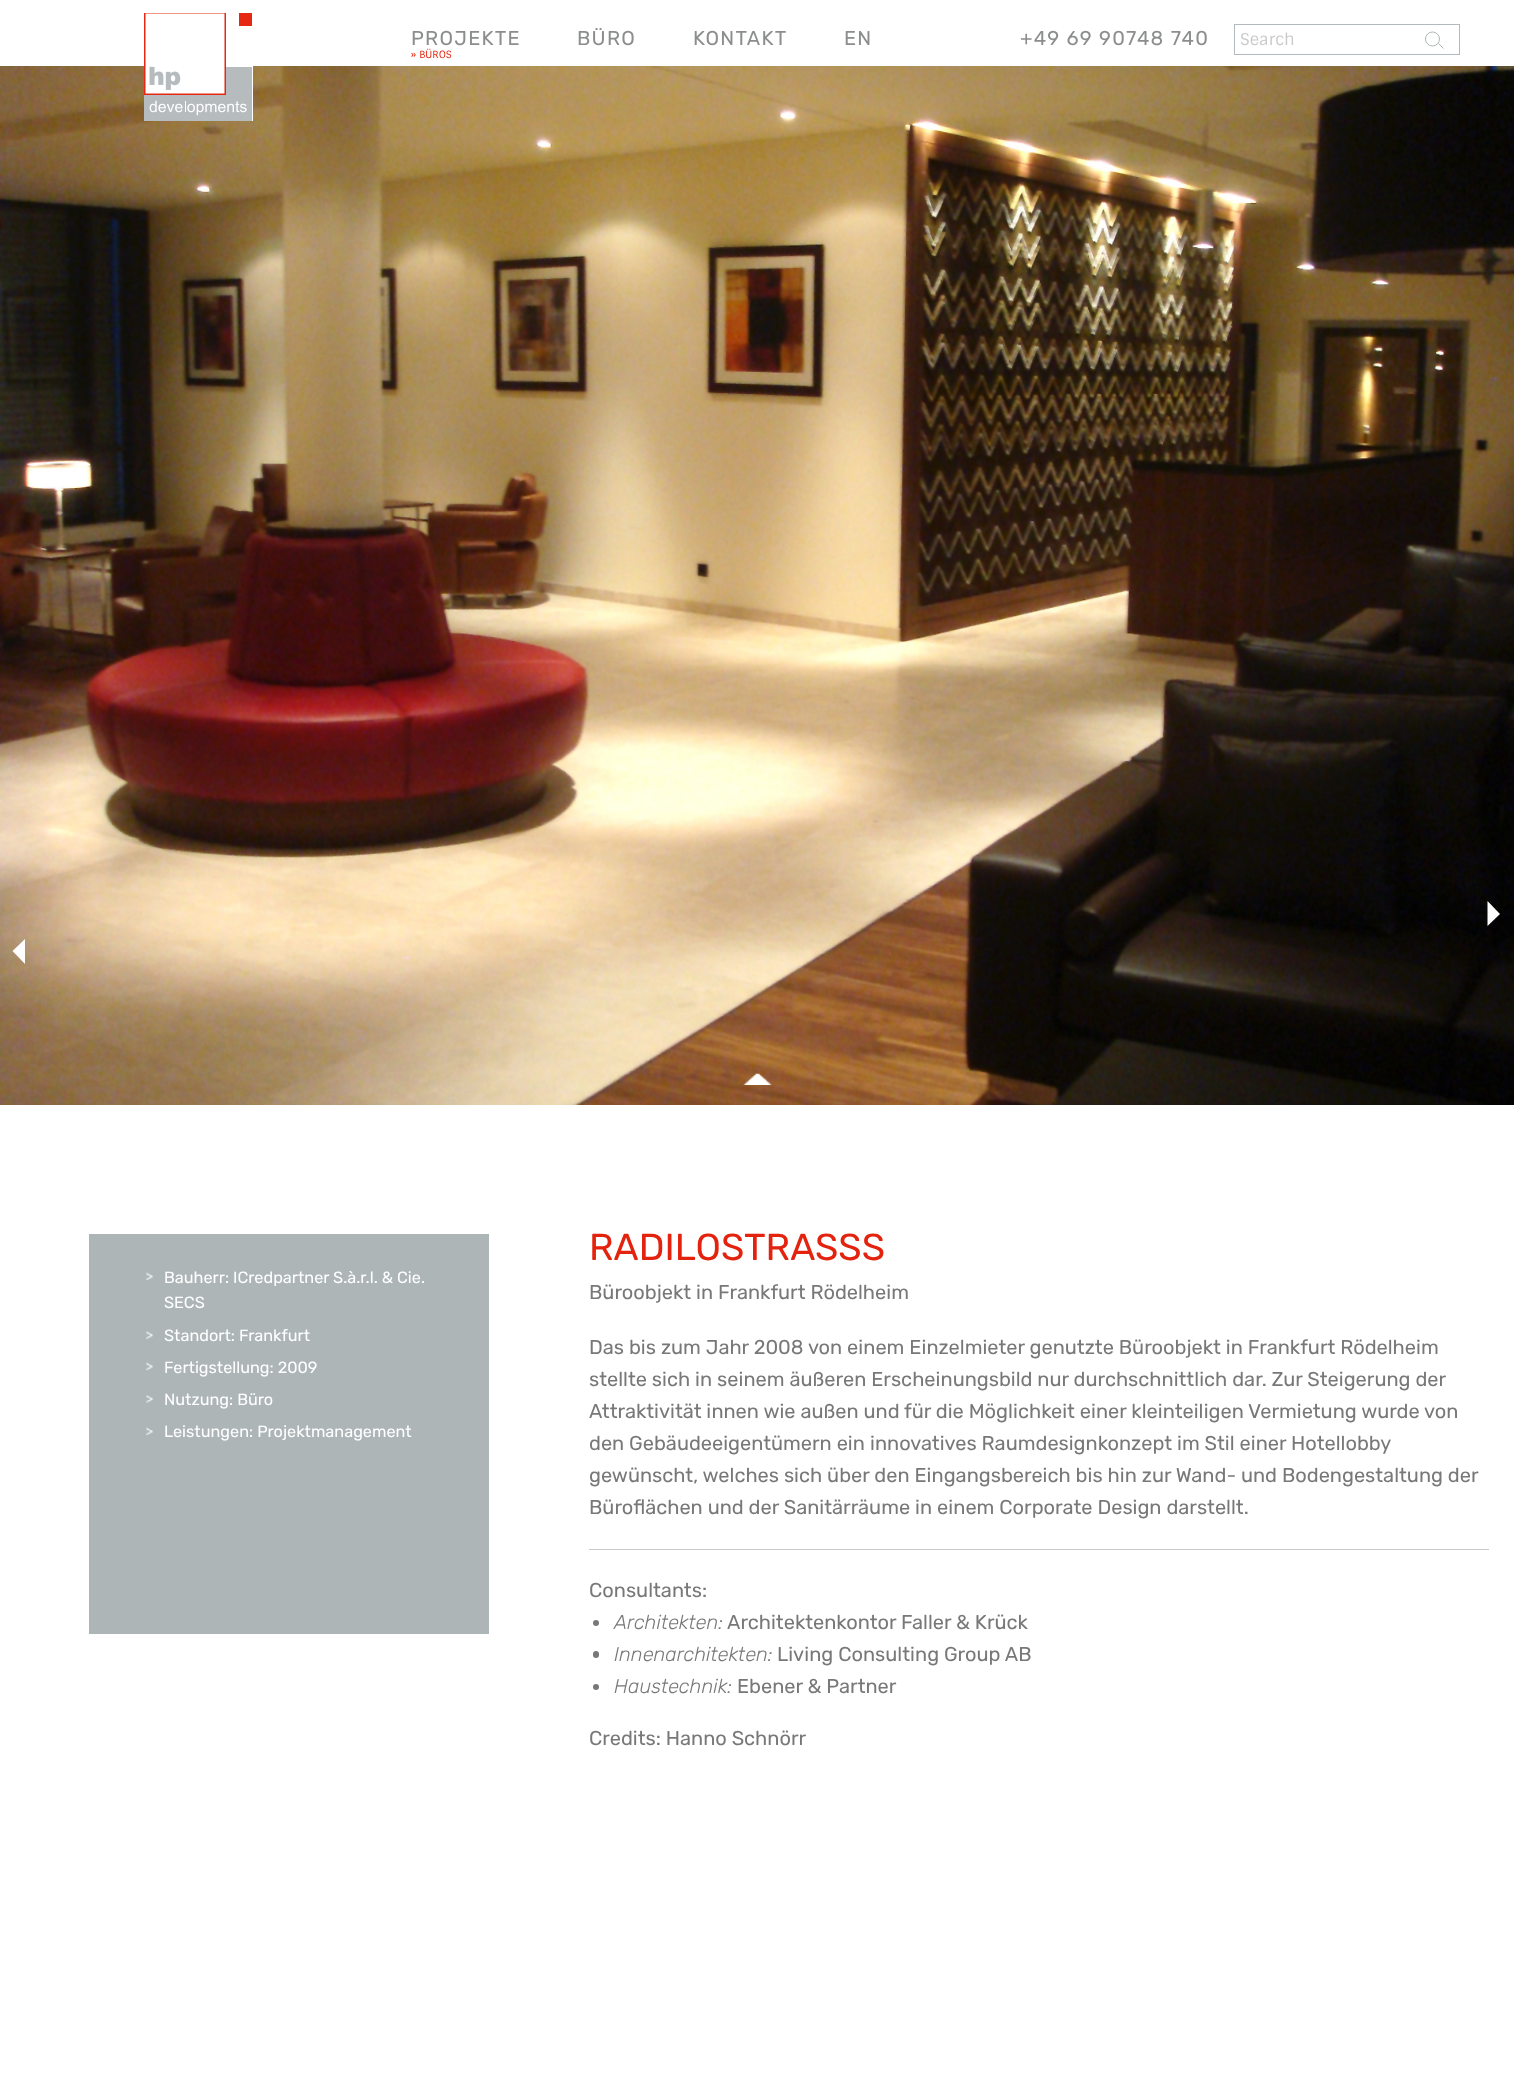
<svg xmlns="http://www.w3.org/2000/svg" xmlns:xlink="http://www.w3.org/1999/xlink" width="1514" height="2098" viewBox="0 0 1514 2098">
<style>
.cls-1{font:300 20px Rubik;letter-spacing:1.25px;fill:#8c8e8e}
.cls-2{font:10px Sintony;fill:#e4230e}
.cls-3{font:16.25px Sintony;fill:#cacaca}
.cls-4{font:300 16.25px Rubik;fill:#ffffff}
.cls-5{font:300 37.5px Rubik;fill:#e4230e}
.cls-6{font:300 20px Rubik;fill:#787878}
.cls-7{font:italic 300 20px Rubik;fill:#787878}
</style>
<rect width="100%" height="100%" fill="#ffffff"/>
<image xlink:href="image1.png" x="0" y="66" width="1514" height="1039"/>
<rect fill="#ffffff" x="226" y="66" width="27" height="55"/>
<image xlink:href="image0.png" x="144" y="13" width="108" height="108"/>
<rect fill="none" stroke="#b2babd" x="1234.5" y="24.5" width="225" height="30"/>
<circle fill="none" stroke="#a6adb0" stroke-width="0.9" cx="1432.5" cy="39" r="7"/>
<path fill="none" stroke="#a6adb0" stroke-width="0.9" d="M1438.5 43.5L1443.5 48.5"/>
<path fill="#ffffff" d="M1487.5 926V901L1500 914Z"/>
<path fill="#ffffff" d="M25 939V964L12.5 951Z"/>
<image xlink:href="image2.png" x="743" y="1073" width="29" height="12"/>
<rect fill="#adb5b7" x="89" y="1234" width="400" height="400"/>
<image xlink:href="image3.png" x="146" y="1272" width="7" height="9"/>
<image xlink:href="image4.png" x="146" y="1331" width="7" height="8"/>
<image xlink:href="image3.png" x="146" y="1362" width="7" height="9"/>
<image xlink:href="image5.png" x="146" y="1395" width="7" height="8"/>
<image xlink:href="image3.png" x="146" y="1427" width="7" height="9"/>
<rect fill="#cacaca" x="589" y="1549" width="900" height="1"/>
<circle fill="#787878" cx="596" cy="1623" r="3"/>
<rect fill="#787878" x="593" y="1651" width="6" height="7" rx="3"/>
<circle fill="#787878" cx="596" cy="1687" r="3"/>
<text class="cls-1" x="411" y="45">PROJEKTE</text>
<text class="cls-2" x="411" y="58">» BÜROS</text>
<text class="cls-1" x="577" y="45">BÜRO</text>
<text class="cls-1" x="693" y="45">KONTAKT</text>
<text class="cls-1" x="844" y="45">EN</text>
<text class="cls-1" x="1020" y="45">+49 69 90748 740</text>
<text class="cls-3" x="1240" y="45">Search</text>
<text class="cls-4"><tspan x="164" y="1283">Bauherr: ICredpartner S.à.r.l. &amp; Cie.</tspan><tspan x="164" y="1308">SECS</tspan></text>
<text class="cls-4"><tspan x="164" y="1341">Standort: Frankfurt</tspan><tspan x="164" y="1373">Fertigstellung: 2009</tspan><tspan x="164" y="1405">Nutzung: Büro</tspan><tspan x="164" y="1437">Leistungen: Projektmanagement</tspan></text>
<text class="cls-5" x="589" y="1260">RADILOSTRA</text>
<text class="cls-5" x="815" y="1260">SSS</text>
<text class="cls-6" x="589" y="1299">Büroobjekt in Frankfurt Rödelheim</text>
<text class="cls-6"><tspan x="589" y="1354">Das bis zum Jahr 2008 von einem Einzelmieter genutzte Büroobjekt in Frankfurt Rödelheim</tspan><tspan x="589" y="1386">stellte sich in seinem äußeren Erscheinungsbild nur durchschnittlich dar. Zur Steigerung der</tspan><tspan x="589" y="1418">Attraktivität innen wie außen und für die Möglichkeit einer kleinteiligen Vermietung wurde von</tspan><tspan x="589" y="1450">den Gebäudeeigentümern ein innovatives Raumdesignkonzept im Stil einer Hotellobby</tspan><tspan x="589" y="1482">gewünscht, welches sich über den Eingangsbereich bis hin zur Wand- und Bodengestaltung der</tspan><tspan x="589" y="1514">Büroflächen und der Sanitärräume in einem Corporate Design darstellt.</tspan></text>
<text class="cls-6" x="589" y="1597">Consultants:</text>
<text class="cls-7" x="614" y="1629">Architekten:</text>
<text class="cls-6" x="727" y="1629">Architektenkontor Faller &amp; Krück</text>
<text class="cls-7" x="614" y="1661">Innenarchitekten:</text>
<text class="cls-6" x="777" y="1661">Living Consulting Group AB</text>
<text class="cls-7" x="614" y="1693">Haustechnik:</text>
<text class="cls-6" x="737" y="1693">Ebener &amp; Partner</text>
<text class="cls-6" x="589" y="1745">Credits: Hanno Schnörr</text>
</svg>
